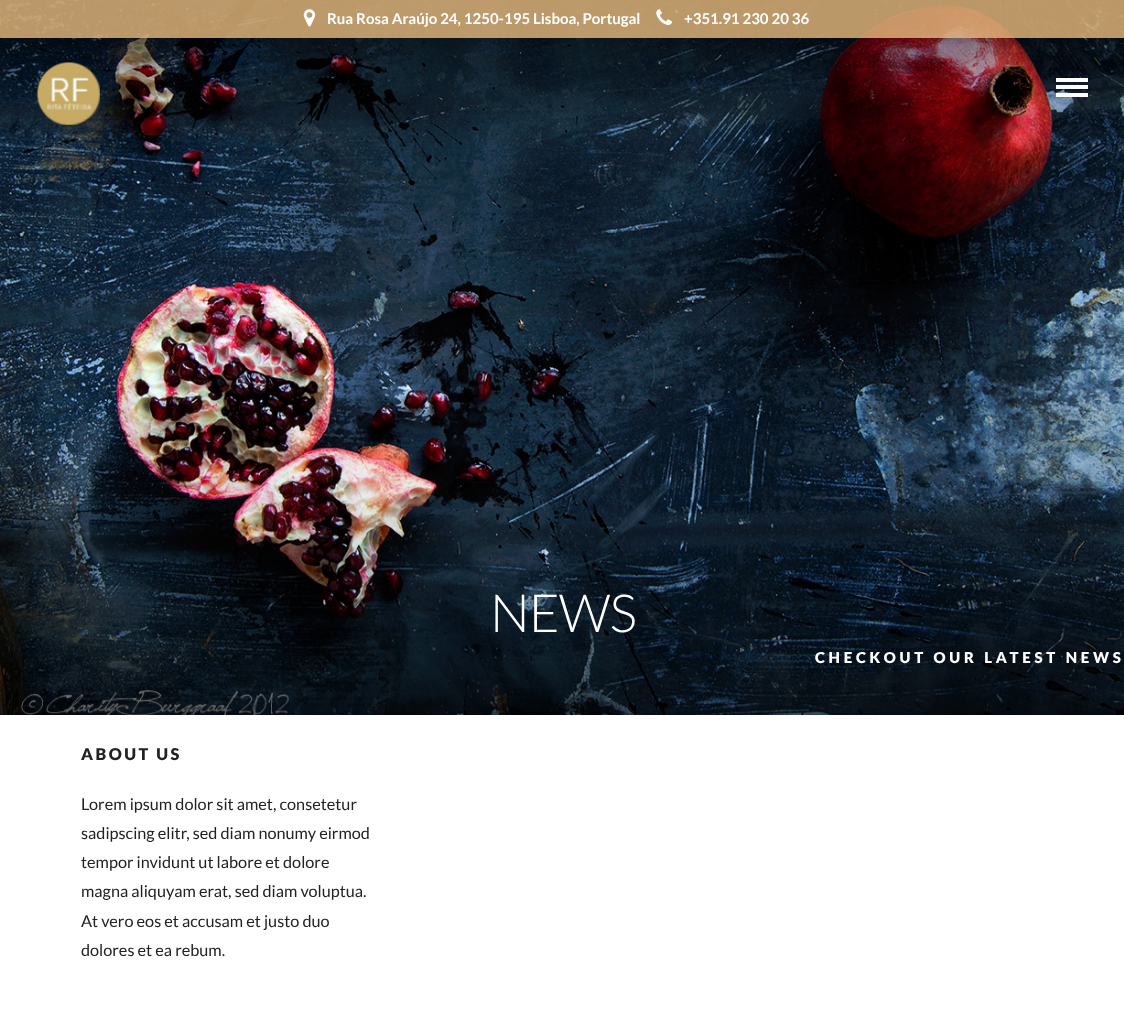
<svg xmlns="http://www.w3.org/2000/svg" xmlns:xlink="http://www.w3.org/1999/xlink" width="1124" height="1021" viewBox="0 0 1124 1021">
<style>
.cls-1{font:bold 15px Lato;fill:#ffffff}
.cls-2{font:300 52.5px Lato;letter-spacing:-1px;fill:#ffffff}
.cls-3{font:900 15px Lato;letter-spacing:3.75px;fill:#ffffff}
.cls-4{font:900 16.25px Lato;letter-spacing:2.5px;fill:#222222}
.cls-5{font:16.25px Lato;fill:#222222}
</style>
<rect width="100%" height="100%" fill="#ffffff"/>
<image xlink:href="image3.png" x="0" y="0" width="1124" height="715"/>
<rect fill="#cfa670" fill-opacity="0.9" x="0" y="0" width="1124" height="38"/>
<image xlink:href="image0.png" x="303" y="9" width="13" height="18"/>
<image xlink:href="image1.png" x="656" y="9" width="16" height="16"/>
<image xlink:href="image2.png" x="37" y="62" width="63" height="63"/>
<rect fill="#ffffff" x="1056" y="78" width="32" height="4"/>
<rect fill="#ffffff" x="1056" y="85" width="32" height="4"/>
<rect fill="#ffffff" x="1056" y="93" width="32" height="4"/>
<text class="cls-1" x="327" y="24">Rua Rosa Araújo 24, 1250-195 Lisboa, Portugal</text>
<text class="cls-1" x="684" y="24">+351.91 230 20 36</text>
<text class="cls-2" x="490" y="632">NEWS</text>
<text class="cls-3" x="815" y="663">CHECKOUT OUR LATEST NEWS</text>
<text class="cls-4" x="81" y="760">ABOUT US</text>
<text class="cls-5"><tspan x="81" y="810">Lorem ipsum dolor sit amet, consetetur</tspan><tspan x="81" y="839">sadipscing elitr, sed diam nonumy eirmod</tspan><tspan x="81" y="868">tempor invidunt ut labore et dolore</tspan><tspan x="81" y="897">magna aliquyam erat, sed diam voluptua.</tspan><tspan x="81" y="927">At vero eos et accusam et justo duo</tspan><tspan x="81" y="956">dolores et ea rebum.</tspan></text>
</svg>
